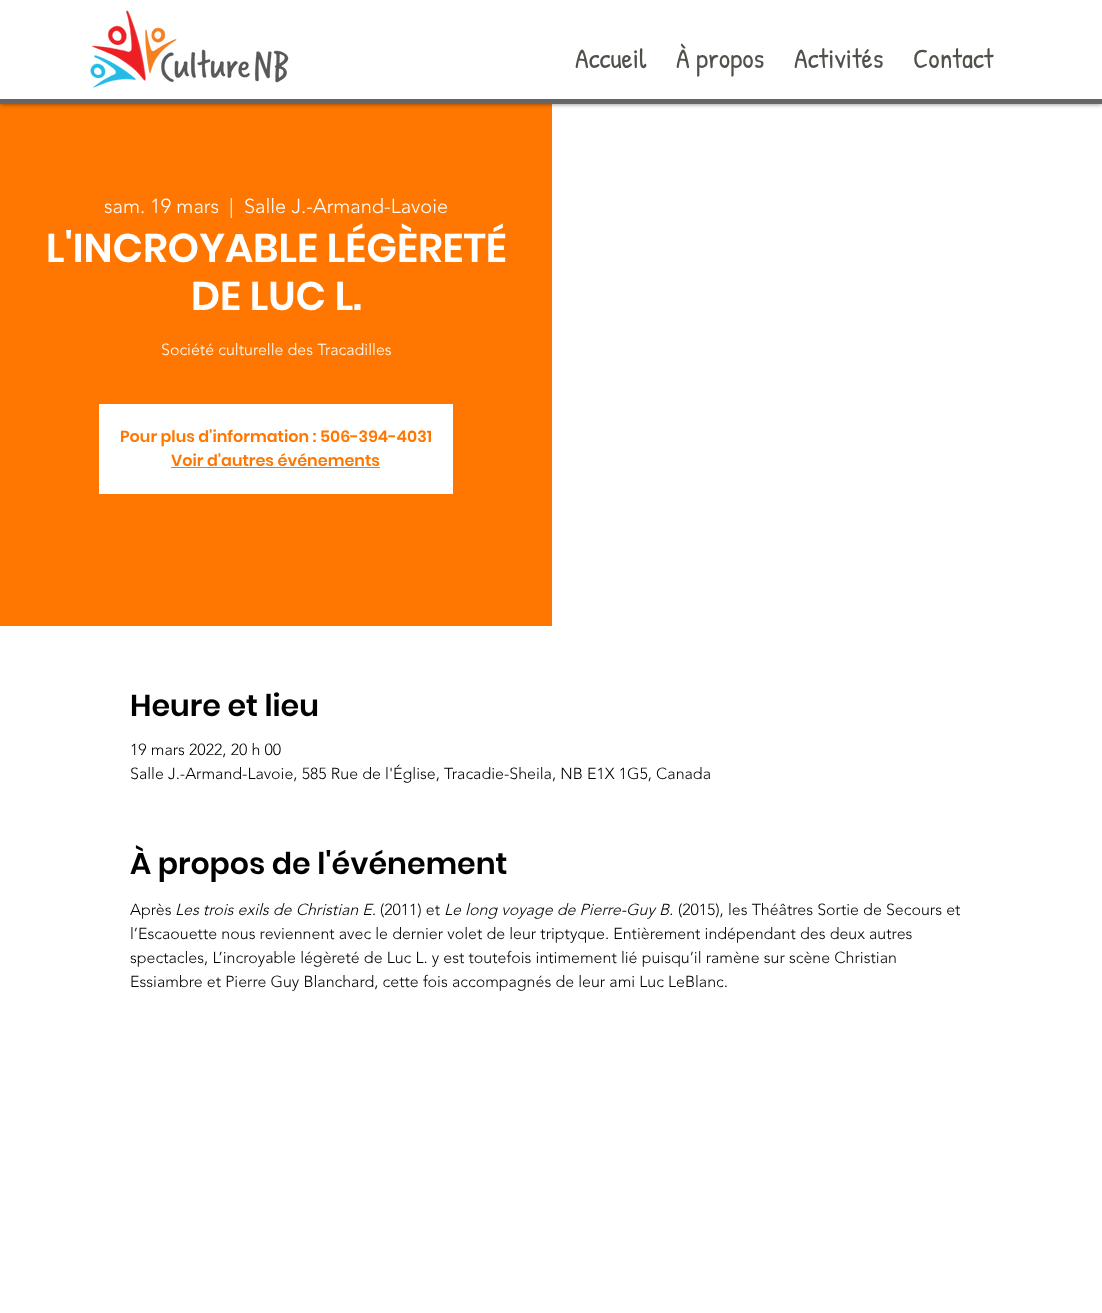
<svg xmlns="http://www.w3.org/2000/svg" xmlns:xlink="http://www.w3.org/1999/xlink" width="1102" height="1313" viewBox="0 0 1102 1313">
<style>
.cls-1{font:28px Patrick Hand;fill:#51504b}
.cls-2{font:300 20px 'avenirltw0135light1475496';fill:#ffffff}
.cls-3{font:600 40px Poppins;fill:#ffffff}
.cls-4{font:300 16px 'avenirltw0135light1475496';fill:#ffffff}
.cls-5{font:600 16px Poppins;fill:#ff7700}
.cls-6{font:600 30px Poppins;fill:#000000}
.cls-7{font:300 16px 'avenirltw0135light1475496';fill:#000000}
.cls-8{font:italic 300 16px 'avenirltw0135light1475496';fill:#000000}
</style>
<rect width="100%" height="100%" fill="#ffffff"/>
<rect fill="#ff7700" x="0" y="104" width="552" height="522"/>
<rect fill="#000000" fill-opacity="0.5" filter="blur(2.5px)" x="0" y="0" width="1102" height="104"/>
<rect fill="#ffffff" x="0" y="0" width="1102" height="99"/>
<rect fill="#666666" x="0" y="99" width="1102" height="5"/>
<image xlink:href="image0.png" x="90" y="10" width="199" height="78"/>
<rect fill="#ffffff" x="99" y="404" width="354" height="90"/>
<rect fill="#ff7700" x="171" y="467" width="209" height="1"/>
<text class="cls-1" x="575" y="68">Accueil</text>
<text class="cls-1" x="676" y="68">À propos</text>
<text class="cls-1" x="794" y="68">Activités</text>
<text class="cls-1" x="913" y="68">Contact</text>
<text class="cls-2" x="104" y="213">sam. 19 mars</text>
<text class="cls-2" x="229" y="213">|</text>
<text class="cls-2" x="244" y="213">Salle J.-Armand-Lavoie</text>
<text class="cls-3" x="46" y="262">L'INCROYABLE LÉGÈRETÉ</text>
<text class="cls-3" x="191" y="310">DE LUC L.</text>
<text class="cls-4" x="161" y="355">Société culturelle des Tracadilles</text>
<text class="cls-5" x="120" y="442">Pour plus d'information : 506-394-4031</text>
<text class="cls-5" x="171" y="466">Voir d'autres événements</text>
<text class="cls-6" x="130" y="716">Heure et lieu</text>
<text class="cls-7"><tspan x="130" y="755">19 mars 2022, 20 h 00</tspan><tspan x="130" y="779">Salle J.-Armand-Lavoie, 585 Rue de l'Église, Tracadie-Sheila, NB E1X 1G5, Canada</tspan></text>
<text class="cls-6" x="130" y="874">À propos de l'événement</text>
<text class="cls-7" x="130" y="915">Après</text>
<text class="cls-8" x="175" y="915">Les trois exils de Christian E.</text>
<text class="cls-7" x="380" y="915">(2011) et</text>
<text class="cls-8" x="444" y="915">Le long voyage de Pierre-Guy B.</text>
<text class="cls-7" x="678" y="915">(2015), les Théâtres Sortie de Secours et</text>
<text class="cls-7"><tspan x="130" y="939">l’Escaouette nous reviennent avec le dernier volet de leur triptyque. Entièrement indépendant des deux autres</tspan><tspan x="130" y="963">spectacles, L’incroyable légèreté de Luc L. y est toutefois intimement lié puisqu’il ramène sur scène Christian</tspan><tspan x="130" y="987">Essiambre et Pierre Guy Blanchard, cette fois accompagnés de leur ami Luc LeBlanc.</tspan></text>
</svg>
